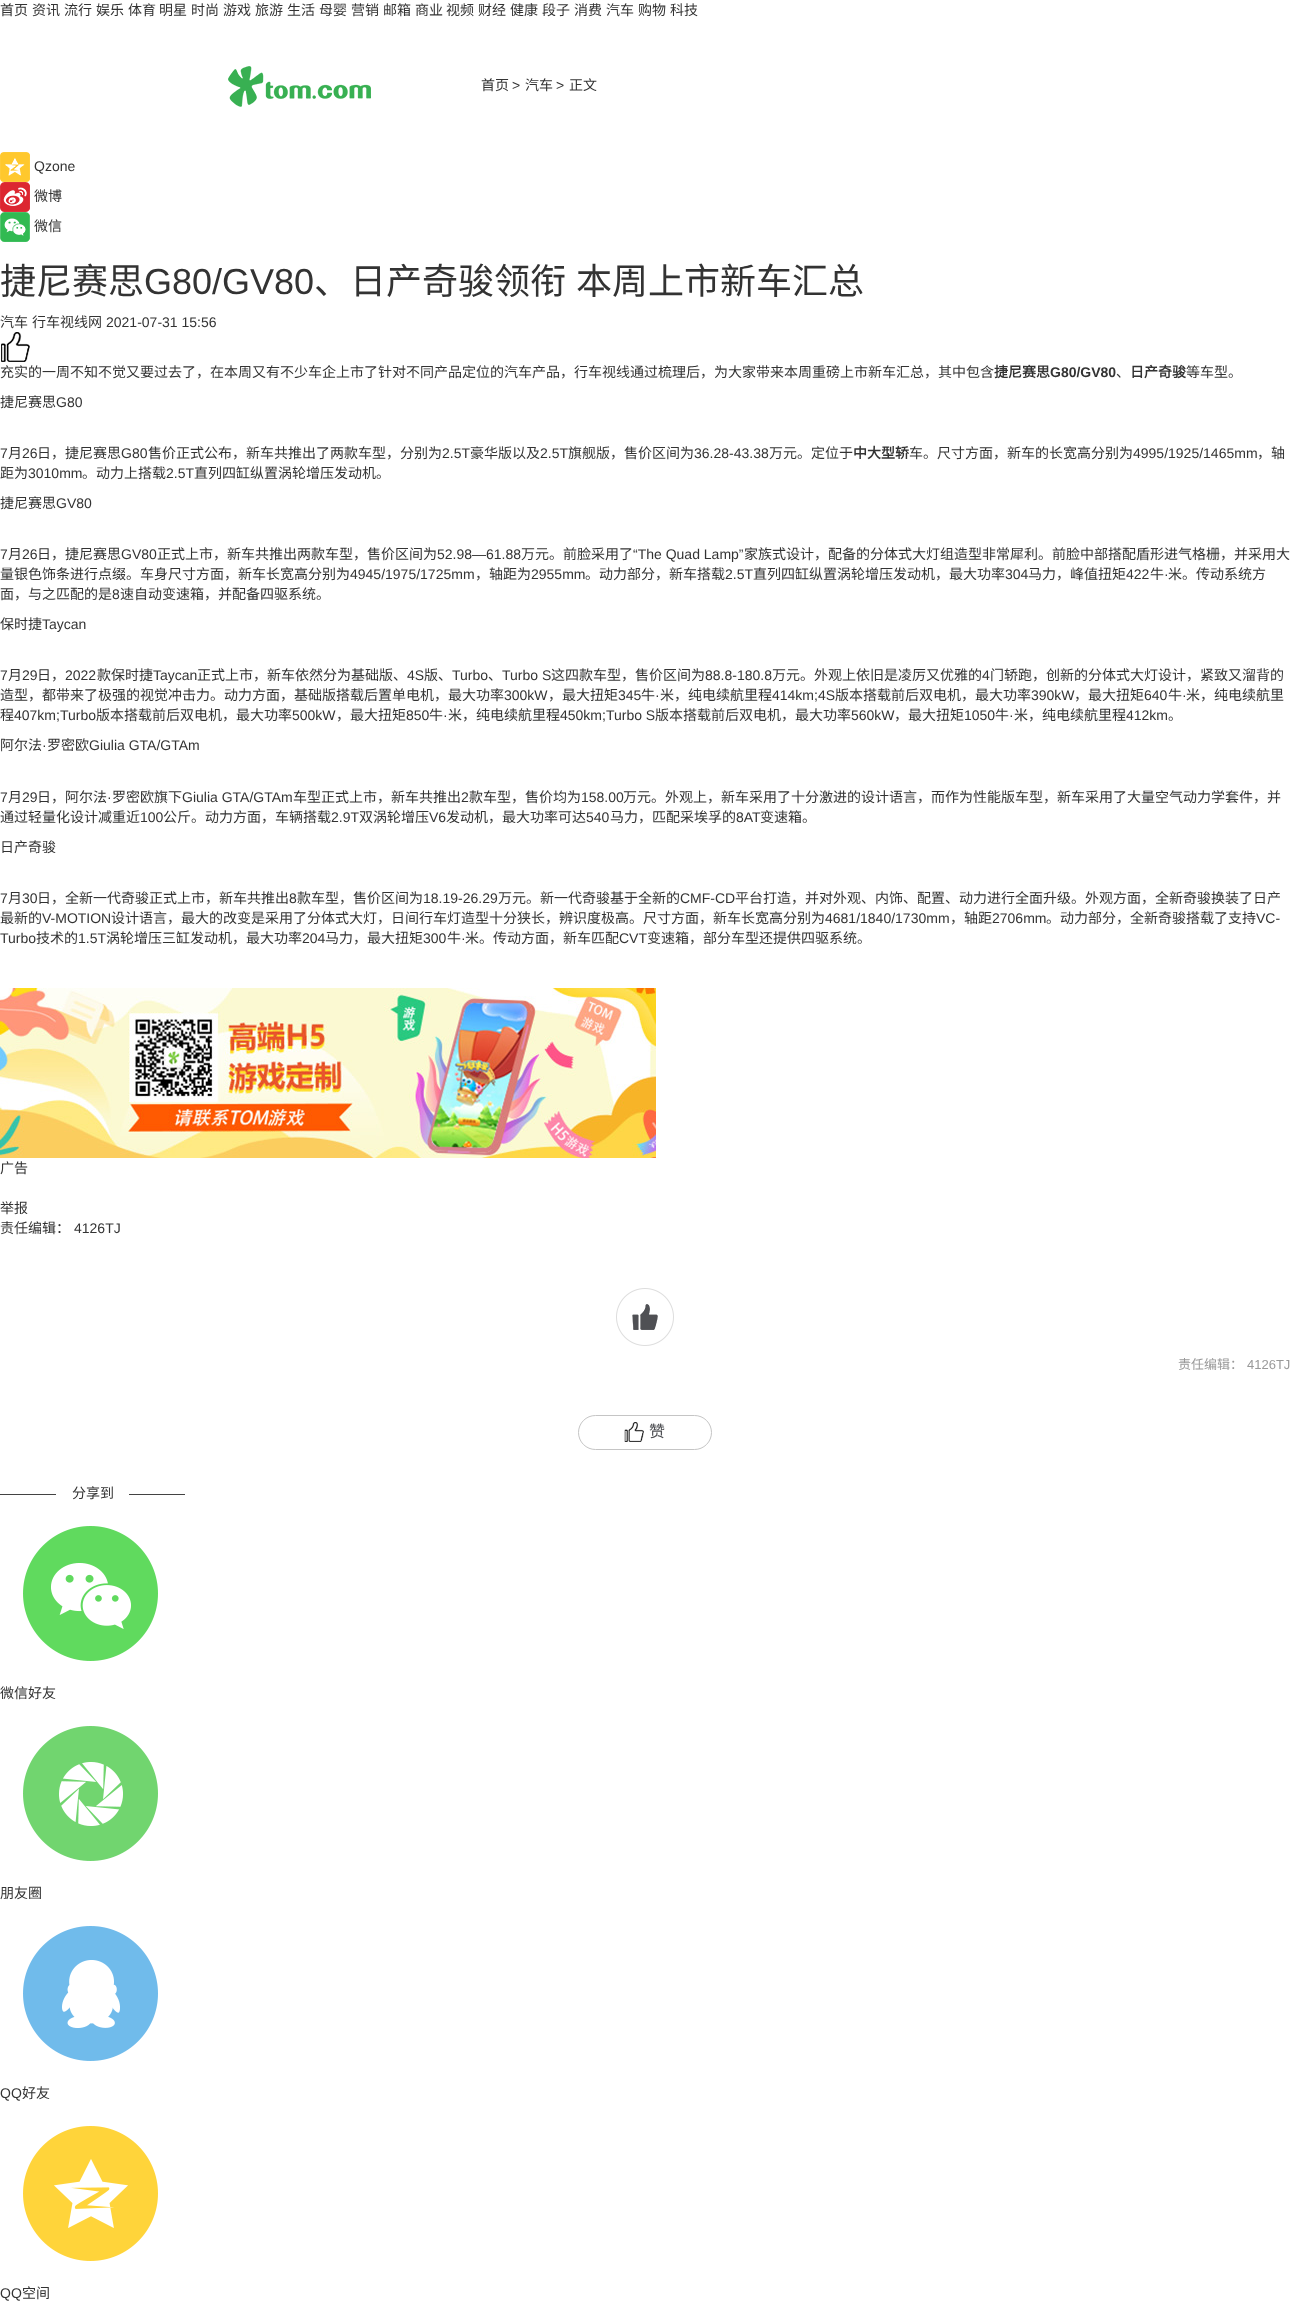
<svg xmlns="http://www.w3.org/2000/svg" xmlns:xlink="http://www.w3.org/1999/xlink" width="1290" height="2313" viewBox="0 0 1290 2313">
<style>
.cls-1{font:14px Noto Sans CJK SC;fill:#333333}
.cls-2{font:14px Liberation Sans;fill:#333333}
.cls-3{font:36px Noto Sans CJK SC;fill:#333333}
.cls-4{font:36px Liberation Sans;fill:#333333}
.cls-5{font:bold 14px Noto Sans CJK SC;fill:#333333}
.cls-6{font:bold 14px Liberation Sans;fill:#333333}
.cls-7{font:13px Noto Sans CJK SC;fill:#999999}
.cls-8{font:13px Liberation Sans;fill:#999999}
.cls-9{font:16px Noto Sans CJK SC;fill:#4f5054}
</style>
<rect width="100%" height="100%" fill="#ffffff"/>
<image xlink:href="image0.png" x="228" y="66" width="143" height="41"/>
<image xlink:href="image1.png" x="0" y="152" width="30" height="30"/>
<image xlink:href="image2.png" x="0" y="182" width="30" height="30"/>
<image xlink:href="image3.png" x="0" y="212" width="30" height="30"/>
<image xlink:href="image4.png" x="1" y="332" width="29" height="30"/>
<image xlink:href="image5.png" x="0" y="988" width="656" height="170"/>
<image xlink:href="image6.png" x="616" y="1288" width="58" height="58"/>
<rect fill="none" stroke="#c5c5c5" x="578.5" y="1415.5" width="133" height="34" rx="17"/>
<image xlink:href="image7.png" x="624" y="1422" width="20" height="20"/>
<image xlink:href="image8.png" x="23" y="1526" width="135" height="135"/>
<image xlink:href="image9.png" x="23" y="1726" width="135" height="135"/>
<image xlink:href="image10.png" x="23" y="1926" width="135" height="135"/>
<image xlink:href="image11.png" x="23" y="2126" width="135" height="135"/>
<text class="cls-1" x="0" y="15">首页</text>
<text class="cls-1" x="32" y="15">资讯</text>
<text class="cls-1" x="64" y="15">流行</text>
<text class="cls-1" x="96" y="15">娱乐</text>
<text class="cls-1" x="128" y="15">体育</text>
<text class="cls-1" x="159" y="15">明星</text>
<text class="cls-1" x="191" y="15">时尚</text>
<text class="cls-1" x="223" y="15">游戏</text>
<text class="cls-1" x="255" y="15">旅游</text>
<text class="cls-1" x="287" y="15">生活</text>
<text class="cls-1" x="319" y="15">母婴</text>
<text class="cls-1" x="351" y="15">营销</text>
<text class="cls-1" x="383" y="15">邮箱</text>
<text class="cls-1" x="415" y="15">商业</text>
<text class="cls-1" x="446" y="15">视频</text>
<text class="cls-1" x="478" y="15">财经</text>
<text class="cls-1" x="510" y="15">健康</text>
<text class="cls-1" x="542" y="15">段子</text>
<text class="cls-1" x="574" y="15">消费</text>
<text class="cls-1" x="606" y="15">汽车</text>
<text class="cls-1" x="638" y="15">购物</text>
<text class="cls-1" x="670" y="15">科技</text>
<text class="cls-1" x="481" y="90">首页</text>
<text class="cls-2" x="512" y="90">&gt;</text>
<text class="cls-1" x="525" y="90">汽车</text>
<text class="cls-2" x="556" y="90">&gt;</text>
<text class="cls-1" x="569" y="90">正文</text>
<text class="cls-2" x="34" y="171">Qzone</text>
<text class="cls-1" x="34" y="201">微博</text>
<text class="cls-1" x="34" y="231">微信</text>
<text class="cls-3" x="0" y="294">捷尼赛思</text>
<text class="cls-4" x="144" y="294">G80/GV80</text>
<text class="cls-3" x="314" y="294" word-spacing="2">、日产奇骏领衔 本周上市新车汇总</text>
<text class="cls-1" x="0" y="327">汽车</text>
<text class="cls-1" x="32" y="327">行车视线网</text>
<text class="cls-2" x="106" y="327">2021-07-31 15:56</text>
<text class="cls-1" x="0" y="377">充实的一周不知不觉又要过去了，在本周又有不少车企上市了针对不同产品定位的汽车产品，行车视线通过梳理后，为大家带来本周重磅上市新车汇总，其中包含</text>
<text class="cls-5" x="994" y="377">捷尼赛思</text>
<text class="cls-6" x="1050" y="377">G80/GV80</text>
<text class="cls-1" x="1116" y="377">、</text>
<text class="cls-5" x="1130" y="377">日产奇骏</text>
<text class="cls-1" x="1186" y="377">等车型。</text>
<text class="cls-1" x="0" y="407">捷尼赛思</text>
<text class="cls-2" x="56" y="407">G80</text>
<text class="cls-2" x="0" y="458">7</text>
<text class="cls-1" x="8" y="458">月</text>
<text class="cls-2" x="22" y="458">26</text>
<text class="cls-1" x="37" y="458">日，捷尼赛思</text>
<text class="cls-2" x="121" y="458">G80</text>
<text class="cls-1" x="148" y="458">售价正式公布，新车共推出了两款车型，分别为</text>
<text class="cls-2" x="442" y="458">2.5T</text>
<text class="cls-1" x="470" y="458">豪华版以及</text>
<text class="cls-2" x="540" y="458">2.5T</text>
<text class="cls-1" x="568" y="458">旗舰版，售价区间为</text>
<text class="cls-2" x="694" y="458">36.28-43.38</text>
<text class="cls-1" x="769" y="458">万元。定位于</text>
<text class="cls-5" x="853" y="458">中大型轿</text>
<text class="cls-1" x="909" y="458">车。尺寸方面，新车的长宽高分别为</text>
<text class="cls-2" x="1133" y="458">4995/1925/1465mm</text>
<text class="cls-1" x="1257" y="458">，轴</text>
<text class="cls-1" x="0" y="478">距为</text>
<text class="cls-2" x="28" y="478">3010mm</text>
<text class="cls-1" x="82" y="478">。动力上搭载</text>
<text class="cls-2" x="166" y="478">2.5T</text>
<text class="cls-1" x="194" y="478">直列四缸纵置涡轮增压发动机。</text>
<text class="cls-1" x="0" y="508">捷尼赛思</text>
<text class="cls-2" x="56" y="508">GV80</text>
<text class="cls-2" x="0" y="559">7</text>
<text class="cls-1" x="8" y="559">月</text>
<text class="cls-2" x="22" y="559">26</text>
<text class="cls-1" x="37" y="559">日，捷尼赛思</text>
<text class="cls-2" x="121" y="559">GV80</text>
<text class="cls-1" x="157" y="559">正式上市，新车共推出两款车型，售价区间为</text>
<text class="cls-2" x="437" y="559">52.98—61.88</text>
<text class="cls-1" x="521" y="559">万元。前脸采用了</text>
<text class="cls-2" x="633" y="559">“The Quad Lamp”</text>
<text class="cls-1" x="744" y="559">家族式设计，配备的分体式大灯组造型非常犀利。前脸中部搭配盾形进气格栅，并采用大</text>
<text class="cls-1" x="0" y="579">量银色饰条进行点缀。车身尺寸方面，新车长宽高分别为</text>
<text class="cls-2" x="350" y="579">4945/1975/1725mm</text>
<text class="cls-1" x="475" y="579">，轴距为</text>
<text class="cls-2" x="531" y="579">2955mm</text>
<text class="cls-1" x="585" y="579">。动力部分，新车搭载</text>
<text class="cls-2" x="725" y="579">2.5T</text>
<text class="cls-1" x="753" y="579">直列四缸纵置涡轮增压发动机，最大功率</text>
<text class="cls-2" x="1005" y="579">304</text>
<text class="cls-1" x="1028" y="579">马力，峰值扭矩</text>
<text class="cls-2" x="1126" y="579">422</text>
<text class="cls-1" x="1150" y="579">牛</text>
<text class="cls-2" x="1164" y="579">·</text>
<text class="cls-1" x="1168" y="579">米。传动系统方</text>
<text class="cls-1" x="0" y="599">面，与之匹配的是</text>
<text class="cls-2" x="112" y="599">8</text>
<text class="cls-1" x="120" y="599">速自动变速箱，并配备四驱系统。</text>
<text class="cls-1" x="0" y="629">保时捷</text>
<text class="cls-2" x="42" y="629">Taycan</text>
<text class="cls-2" x="0" y="680">7</text>
<text class="cls-1" x="8" y="680">月</text>
<text class="cls-2" x="22" y="680">29</text>
<text class="cls-1" x="37" y="680">日，</text>
<text class="cls-2" x="65" y="680">2022</text>
<text class="cls-1" x="97" y="680">款保时捷</text>
<text class="cls-2" x="153" y="680">Taycan</text>
<text class="cls-1" x="197" y="680">正式上市，新车依然分为基础版、</text>
<text class="cls-2" x="407" y="680">4S</text>
<text class="cls-1" x="424" y="680">版、</text>
<text class="cls-2" x="452" y="680">Turbo</text>
<text class="cls-1" x="488" y="680">、</text>
<text class="cls-2" x="502" y="680">Turbo S</text>
<text class="cls-1" x="551" y="680">这四款车型，售价区间为</text>
<text class="cls-2" x="705" y="680">88.8-180.8</text>
<text class="cls-1" x="772" y="680">万元。外观上依旧是凌厉又优雅的</text>
<text class="cls-2" x="982" y="680">4</text>
<text class="cls-1" x="990" y="680">门轿跑，创新的分体式大灯设计，紧致又溜背的</text>
<text class="cls-1" x="0" y="700">造型，都带来了极强的视觉冲击力。动力方面，基础版搭载后置单电机，最大功率</text>
<text class="cls-2" x="504" y="700">300kW</text>
<text class="cls-1" x="548" y="700">，最大扭矩</text>
<text class="cls-2" x="618" y="700">345</text>
<text class="cls-1" x="641" y="700">牛</text>
<text class="cls-2" x="655" y="700">·</text>
<text class="cls-1" x="660" y="700">米，纯电续航里程</text>
<text class="cls-2" x="772" y="700">414km;4S</text>
<text class="cls-1" x="835" y="700">版本搭载前后双电机，最大功率</text>
<text class="cls-2" x="1031" y="700">390kW</text>
<text class="cls-1" x="1074" y="700">，最大扭矩</text>
<text class="cls-2" x="1144" y="700">640</text>
<text class="cls-1" x="1168" y="700">牛</text>
<text class="cls-2" x="1182" y="700">·</text>
<text class="cls-1" x="1186" y="700">米，纯电续航里</text>
<text class="cls-1" x="0" y="720">程</text>
<text class="cls-2" x="14" y="720">407km;Turbo</text>
<text class="cls-1" x="96" y="720">版本搭载前后双电机，最大功率</text>
<text class="cls-2" x="292" y="720">500kW</text>
<text class="cls-1" x="336" y="720">，最大扭矩</text>
<text class="cls-2" x="406" y="720">850</text>
<text class="cls-1" x="429" y="720">牛</text>
<text class="cls-2" x="443" y="720">·</text>
<text class="cls-1" x="448" y="720">米，纯电续航里程</text>
<text class="cls-2" x="560" y="720">450km;Turbo S</text>
<text class="cls-1" x="655" y="720">版本搭载前后双电机，最大功率</text>
<text class="cls-2" x="851" y="720">560kW</text>
<text class="cls-1" x="894" y="720">，最大扭矩</text>
<text class="cls-2" x="964" y="720">1050</text>
<text class="cls-1" x="995" y="720">牛</text>
<text class="cls-2" x="1009" y="720">·</text>
<text class="cls-1" x="1014" y="720">米，纯电续航里程</text>
<text class="cls-2" x="1126" y="720">412km</text>
<text class="cls-1" x="1168" y="720">。</text>
<text class="cls-1" x="0" y="750">阿尔法</text>
<text class="cls-2" x="42" y="750">·</text>
<text class="cls-1" x="47" y="750">罗密欧</text>
<text class="cls-2" x="89" y="750">Giulia GTA/GTAm</text>
<text class="cls-2" x="0" y="802">7</text>
<text class="cls-1" x="8" y="802">月</text>
<text class="cls-2" x="22" y="802">29</text>
<text class="cls-1" x="37" y="802">日，阿尔法</text>
<text class="cls-2" x="107" y="802">·</text>
<text class="cls-1" x="112" y="802">罗密欧旗下</text>
<text class="cls-2" x="182" y="802">Giulia GTA/GTAm</text>
<text class="cls-1" x="293" y="802">车型正式上市，新车共推出</text>
<text class="cls-2" x="461" y="802">2</text>
<text class="cls-1" x="469" y="802">款车型，售价均为</text>
<text class="cls-2" x="581" y="802">158.00</text>
<text class="cls-1" x="623" y="802">万元。外观上，新车采用了十分激进的设计语言，而作为性能版车型，新车采用了大量空气动力学套件，并</text>
<text class="cls-1" x="0" y="822">通过轻量化设计减重近</text>
<text class="cls-2" x="140" y="822">100</text>
<text class="cls-1" x="163" y="822">公斤。动力方面，车辆搭载</text>
<text class="cls-2" x="331" y="822">2.9T</text>
<text class="cls-1" x="359" y="822">双涡轮增压</text>
<text class="cls-2" x="429" y="822">V6</text>
<text class="cls-1" x="446" y="822">发动机，最大功率可达</text>
<text class="cls-2" x="586" y="822">540</text>
<text class="cls-1" x="610" y="822">马力，匹配采埃孚的</text>
<text class="cls-2" x="736" y="822">8AT</text>
<text class="cls-1" x="760" y="822">变速箱。</text>
<text class="cls-1" x="0" y="852">日产奇骏</text>
<text class="cls-2" x="0" y="903">7</text>
<text class="cls-1" x="8" y="903">月</text>
<text class="cls-2" x="22" y="903">30</text>
<text class="cls-1" x="37" y="903">日，全新一代奇骏正式上市，新车共推出</text>
<text class="cls-2" x="289" y="903">8</text>
<text class="cls-1" x="297" y="903">款车型，售价区间为</text>
<text class="cls-2" x="423" y="903">18.19-26.29</text>
<text class="cls-1" x="498" y="903">万元。新一代奇骏基于全新的</text>
<text class="cls-2" x="680" y="903">CMF-CD</text>
<text class="cls-1" x="735" y="903">平台打造，并对外观、内饰、配置、动力进行全面升级。外观方面，全新奇骏换装了日产</text>
<text class="cls-1" x="0" y="923">最新的</text>
<text class="cls-2" x="42" y="923">V-MOTION</text>
<text class="cls-1" x="111" y="923">设计语言，最大的改变是采用了分体式大灯，日间行车灯造型十分狭长，辨识度极高。尺寸方面，新车长宽高分别为</text>
<text class="cls-2" x="825" y="923">4681/1840/1730mm</text>
<text class="cls-1" x="950" y="923">，轴距</text>
<text class="cls-2" x="992" y="923">2706mm</text>
<text class="cls-1" x="1046" y="923">。动力部分，全新奇骏搭载了支持</text>
<text class="cls-2" x="1256" y="923">VC-</text>
<text class="cls-2" x="0" y="943">Turbo</text>
<text class="cls-1" x="36" y="943">技术的</text>
<text class="cls-2" x="78" y="943">1.5T</text>
<text class="cls-1" x="106" y="943">涡轮增压三缸发动机，最大功率</text>
<text class="cls-2" x="302" y="943">204</text>
<text class="cls-1" x="325" y="943">马力，最大扭矩</text>
<text class="cls-2" x="423" y="943">300</text>
<text class="cls-1" x="447" y="943">牛</text>
<text class="cls-2" x="461" y="943">·</text>
<text class="cls-1" x="465" y="943">米。传动方面，新车匹配</text>
<text class="cls-2" x="619" y="943">CVT</text>
<text class="cls-1" x="647" y="943">变速箱，部分车型还提供四驱系统。</text>
<text class="cls-1" x="0" y="1173">广告</text>
<text class="cls-1"><tspan x="0" y="1213">举报</tspan><tspan x="0" y="1233">责任编辑：</tspan></text>
<text class="cls-2" x="74" y="1233">4126TJ</text>
<text class="cls-7" x="1178" y="1369">责任编辑：</text>
<text class="cls-8" x="1247" y="1369">4126TJ</text>
<text class="cls-9" x="649" y="1437">赞</text>
<text class="cls-2" x="0" y="1498">————</text>
<text class="cls-1" x="72" y="1498">分享到</text>
<text class="cls-2" x="129" y="1498">————</text>
<text class="cls-1" x="0" y="1698">微信好友</text>
<text class="cls-1" x="0" y="1898">朋友圈</text>
<text class="cls-2" x="0" y="2098">QQ</text>
<text class="cls-1" x="22" y="2098">好友</text>
<text class="cls-2" x="0" y="2298">QQ</text>
<text class="cls-1" x="22" y="2298">空间</text>
</svg>
